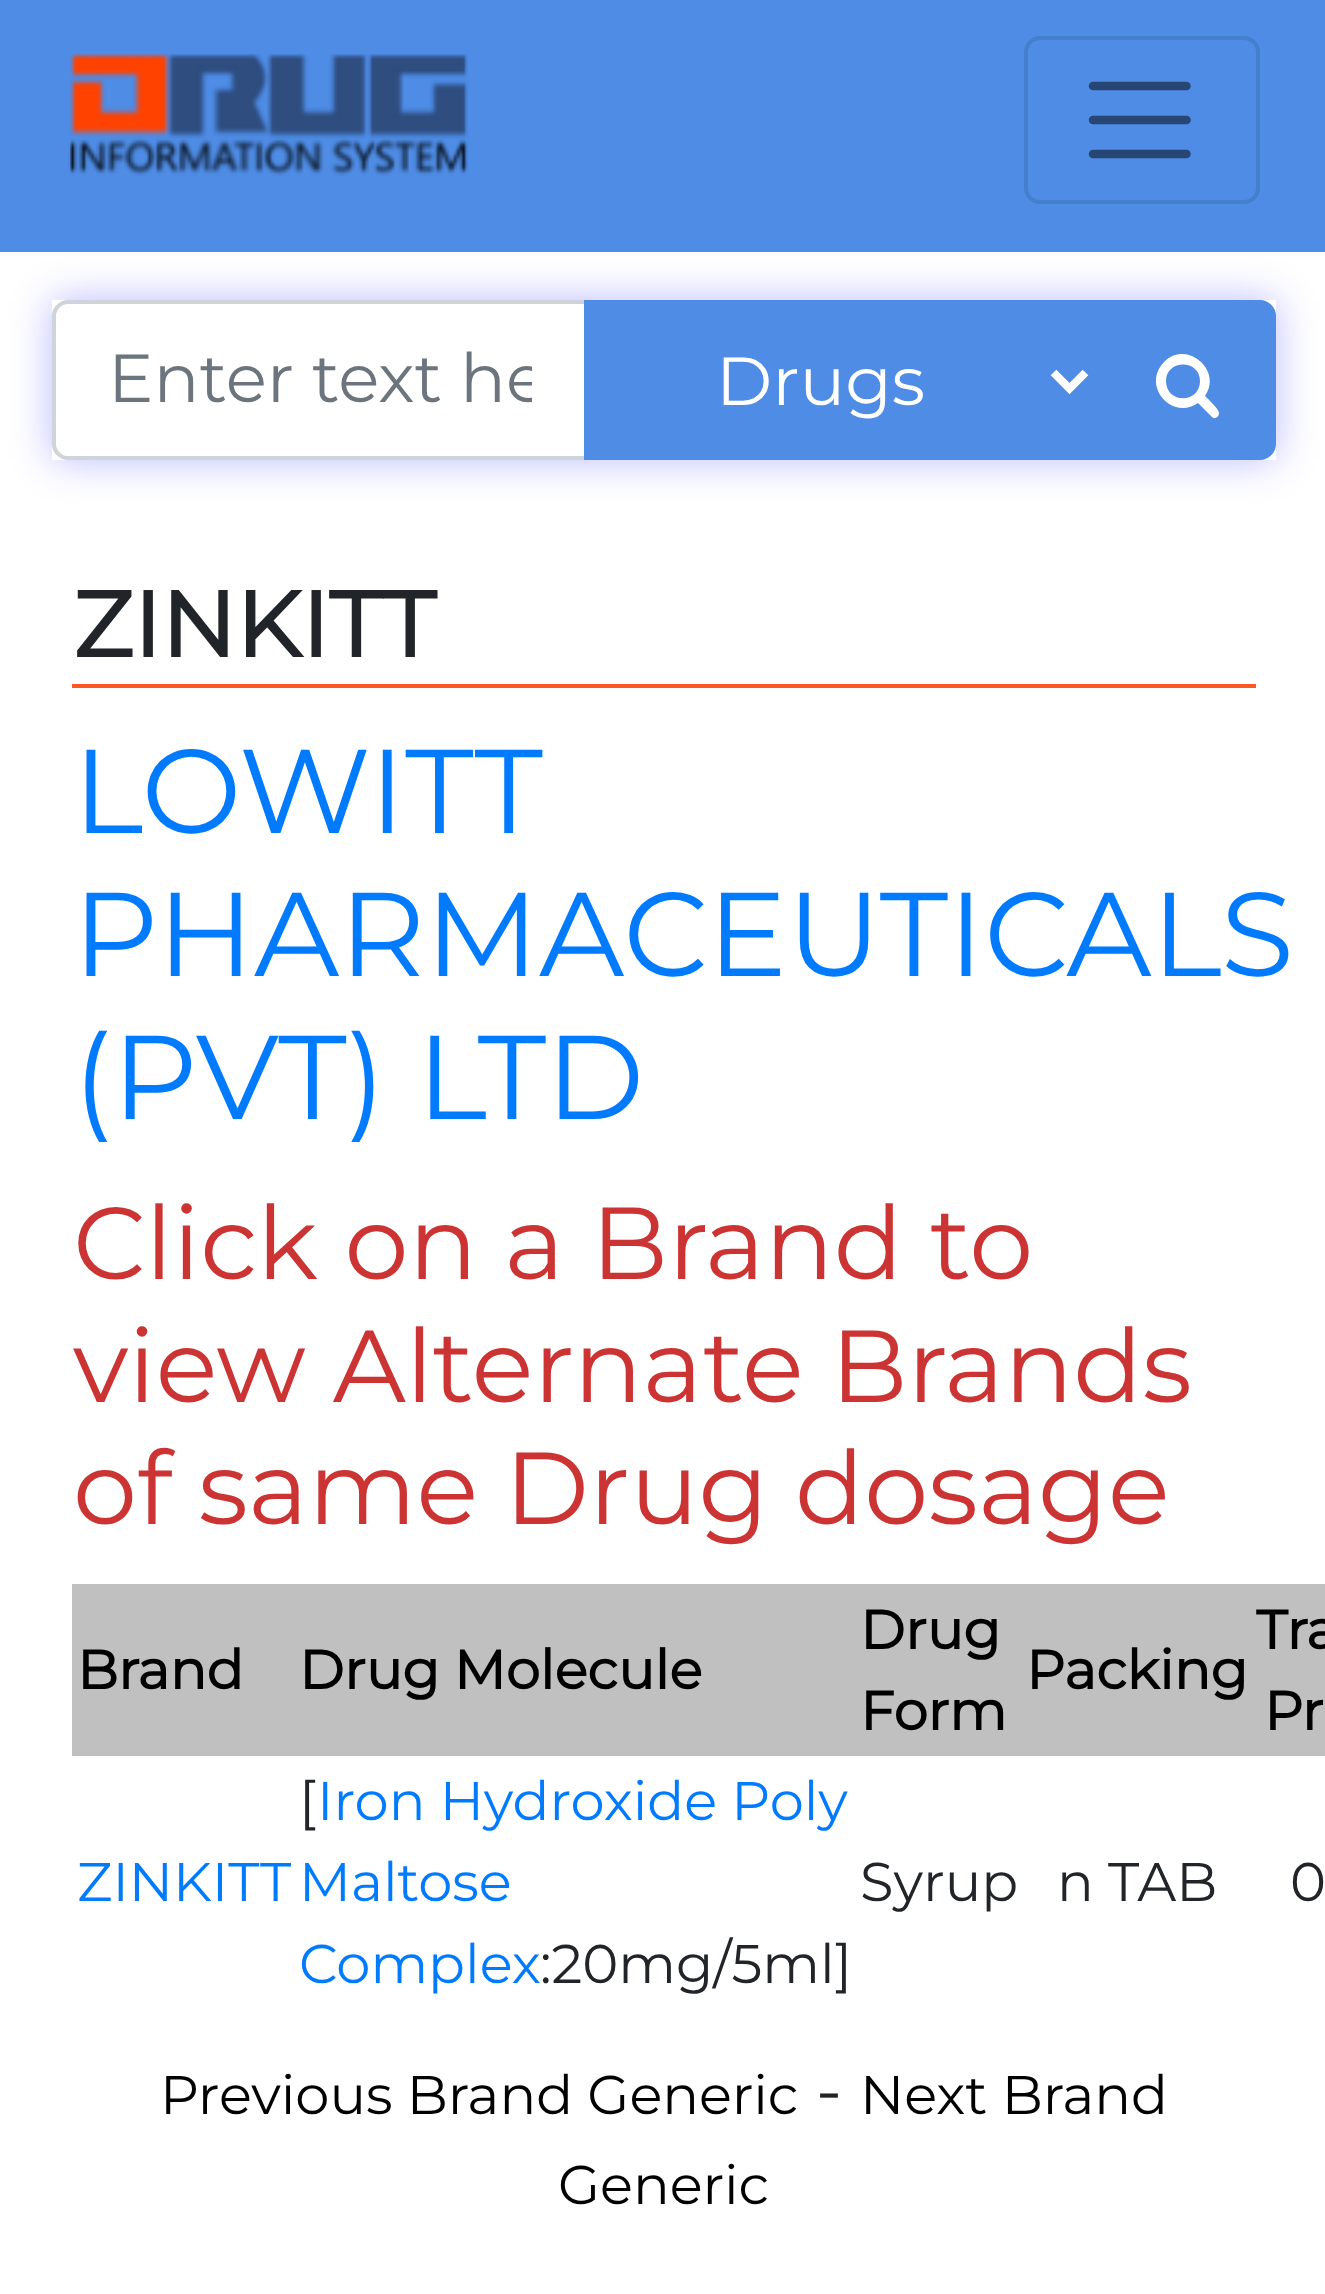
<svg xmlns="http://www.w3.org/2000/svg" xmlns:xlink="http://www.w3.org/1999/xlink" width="1325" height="2294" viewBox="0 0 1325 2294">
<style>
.cls-1{font:100 68px Montserrat;fill:#6c757d}
.cls-2{font:100 68px Montserrat;fill:#ffffff}
.cls-3{font:bold 92px Montserrat;fill:#212529}
.cls-4{font:100 119px Montserrat;fill:#007bff}
.cls-5{font:100 102px Montserrat;fill:#cc3333}
.cls-6{font:bold 54.4px Montserrat;fill:#000000}
.cls-7{font:100 54.4px Montserrat;fill:#007bff}
.cls-8{font:100 54.4px Montserrat;fill:#212529}
.cls-9{font:100 54.4px Montserrat;fill:#000000}
.cls-10{font:100 68px Montserrat;fill:#212529}
</style>
<defs>
<clipPath id="clip1"><path d="M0 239H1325V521H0ZM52 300H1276V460H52Z" clip-rule="evenodd"/></clipPath>
<clipPath id="clip2"><rect x="108" y="336" width="424" height="80"/></clipPath>
</defs>
<rect width="100%" height="100%" fill="#ffffff"/>
<g clip-path="url(#clip1)">
<rect fill="#0000ff" fill-opacity="0.27" filter="blur(20px)" x="52" y="300" width="1224" height="160"/>
</g>
<rect fill="#4e8ce5" x="0" y="0" width="1325" height="252"/>
<image xlink:href="image0.png" x="68" y="54" width="400" height="122"/>
<rect fill="none" stroke="#467ece" stroke-width="4" x="1026" y="38" width="232" height="164" rx="14"/>
<path fill="none" stroke="#274673" stroke-width="8.5" stroke-linecap="round" d="M1093 86H1186.5M1093 120H1186.5M1093 154H1186.5"/>
<path fill="none" stroke="#ced4da" stroke-width="4" d="M68 302H586V458H68C60.5 458 54 451.5 54 444V316C54 308.5 60.5 302 68 302Z"/>
<rect fill="#4e8ce5" stroke="#4e8ce5" stroke-width="4" x="586" y="302" width="516" height="156"/>
<path fill="none" stroke="#ffffff" stroke-width="8" d="M1053.5 372.5L1069.5 388.5L1085.5 372.5"/>
<path fill="#4e8ce5" stroke="#4e8ce5" stroke-width="4" d="M1102 302H1260C1267.5 302 1274 308.5 1274 316V444C1274 451.5 1267.5 458 1260 458H1102Z"/>
<path fill="#ffffff" d="M1200 381C1200 404 1166 404 1166 381C1166 359 1200 359 1200 381ZM1219 413C1219 409 1208 399 1205 396C1223 371 1187 339 1164 362C1141 386 1172 421 1198 403L1211 416C1212 417 1213 418 1214 418C1217 418 1219 416 1219 413Z"/>
<rect fill="#ff5722" x="72" y="684" width="1184" height="4"/>
<rect fill="#c0c0c0" x="72" y="1584" width="1253" height="172"/>
<g clip-path="url(#clip2)">
<text class="cls-1" x="108" y="402">Enter text he</text>
</g>
<text class="cls-2" x="716" y="405">Drugs</text>
<text class="cls-3" x="73" y="657">ZINKITT</text>
<text class="cls-4"><tspan x="73" y="833">LOWITT</tspan><tspan x="73" y="976">PHARMACEUTICALS</tspan><tspan x="73" y="1119">(PVT) LTD</tspan></text>
<text class="cls-5"><tspan x="73" y="1279">Click on a Brand to</tspan><tspan x="73" y="1402">view Alternate Brands</tspan><tspan x="73" y="1524">of same Drug dosage</tspan></text>
<text class="cls-6" x="77" y="1689">Brand</text>
<text class="cls-6" x="299" y="1689">Drug Molecule</text>
<text class="cls-6"><tspan x="860" y="1649">Drug</tspan><tspan x="860" y="1730">Form</tspan></text>
<text class="cls-6" x="1026" y="1689">Packing</text>
<text class="cls-6" x="1256" y="1649">Tra</text>
<text class="cls-6" x="1264" y="1730">Pr</text>
<text class="cls-7" x="77" y="1901">ZINKITT</text>
<text class="cls-8" x="299" y="1820">[</text>
<text class="cls-7" x="317" y="1820">Iron Hydroxide Poly</text>
<text class="cls-7"><tspan x="299" y="1901">Maltose</tspan><tspan x="299" y="1983">Complex</tspan></text>
<text class="cls-8" x="540" y="1983">:20mg/5ml]</text>
<text class="cls-8" x="860" y="1901">Syrup</text>
<text class="cls-8" x="1057" y="1901">n TAB</text>
<text class="cls-8" x="1290" y="1901">0</text>
<text class="cls-9" x="160" y="2114">Previous Brand Generic</text>
<text class="cls-10" x="816" y="2114">-</text>
<text class="cls-9" x="860" y="2114">Next Brand</text>
<text class="cls-9" x="558" y="2204">Generic</text>
</svg>
